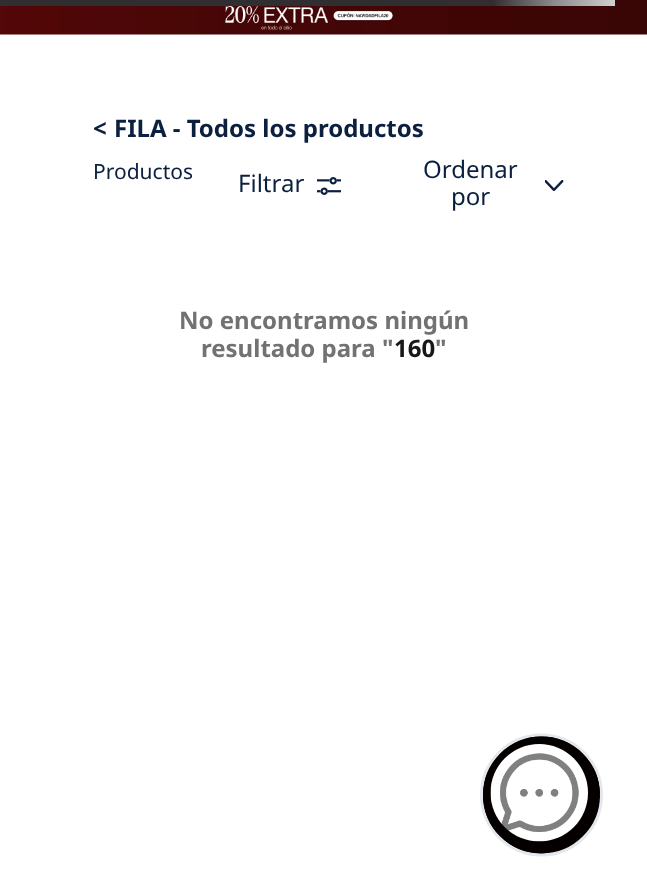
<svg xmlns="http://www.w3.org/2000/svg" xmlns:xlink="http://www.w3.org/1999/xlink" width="647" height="894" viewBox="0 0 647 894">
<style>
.cls-1{font:bold 24px Noto Sans;fill:#0b1f3f}
.cls-2{font:21px Noto Sans;fill:#0b1f3f}
.cls-3{font:24px Noto Sans;fill:#0b1f3f}
.cls-4{font:bold 24px Noto Sans;fill:#727273}
.cls-5{font:bold 24px Noto Sans;fill:#1a171b}
</style>
<defs>
<linearGradient id="g1" gradientUnits="userSpaceOnUse" x1="0" y1="3" x2="616" y2="3"><stop offset="0.8" stop-color="#312e32"/><stop offset="0.9" stop-color="#8d8b8d"/><stop offset="1" stop-color="#d1d1d1"/></linearGradient>
</defs>
<rect width="100%" height="100%" fill="#ffffff"/>
<image xlink:href="image0.png" x="0" y="0" width="647" height="35"/>
<rect fill="url(#g1)" x="0" y="0" width="615" height="6"/>
<image xlink:href="image1.png" x="317" y="177" width="24" height="18"/>
<image xlink:href="image2.png" x="545" y="180" width="19" height="11"/>
<image xlink:href="image3.png" x="480" y="733" width="123" height="124"/>
<text class="cls-1" x="93" y="137">&lt;</text>
<text class="cls-1" x="114" y="137">FILA - Todos los productos</text>
<text class="cls-2" x="93" y="179">Productos</text>
<text class="cls-3" x="238" y="192">Filtrar</text>
<text class="cls-3" x="423" y="178">Ordenar</text>
<text class="cls-3" x="451" y="205">por</text>
<text class="cls-4" x="179" y="329">No encontramos ningún</text>
<text class="cls-4" x="201" y="357">resultado para "</text>
<text class="cls-5" x="394" y="357">160</text>
<text class="cls-4" x="435" y="357">"</text>
</svg>
